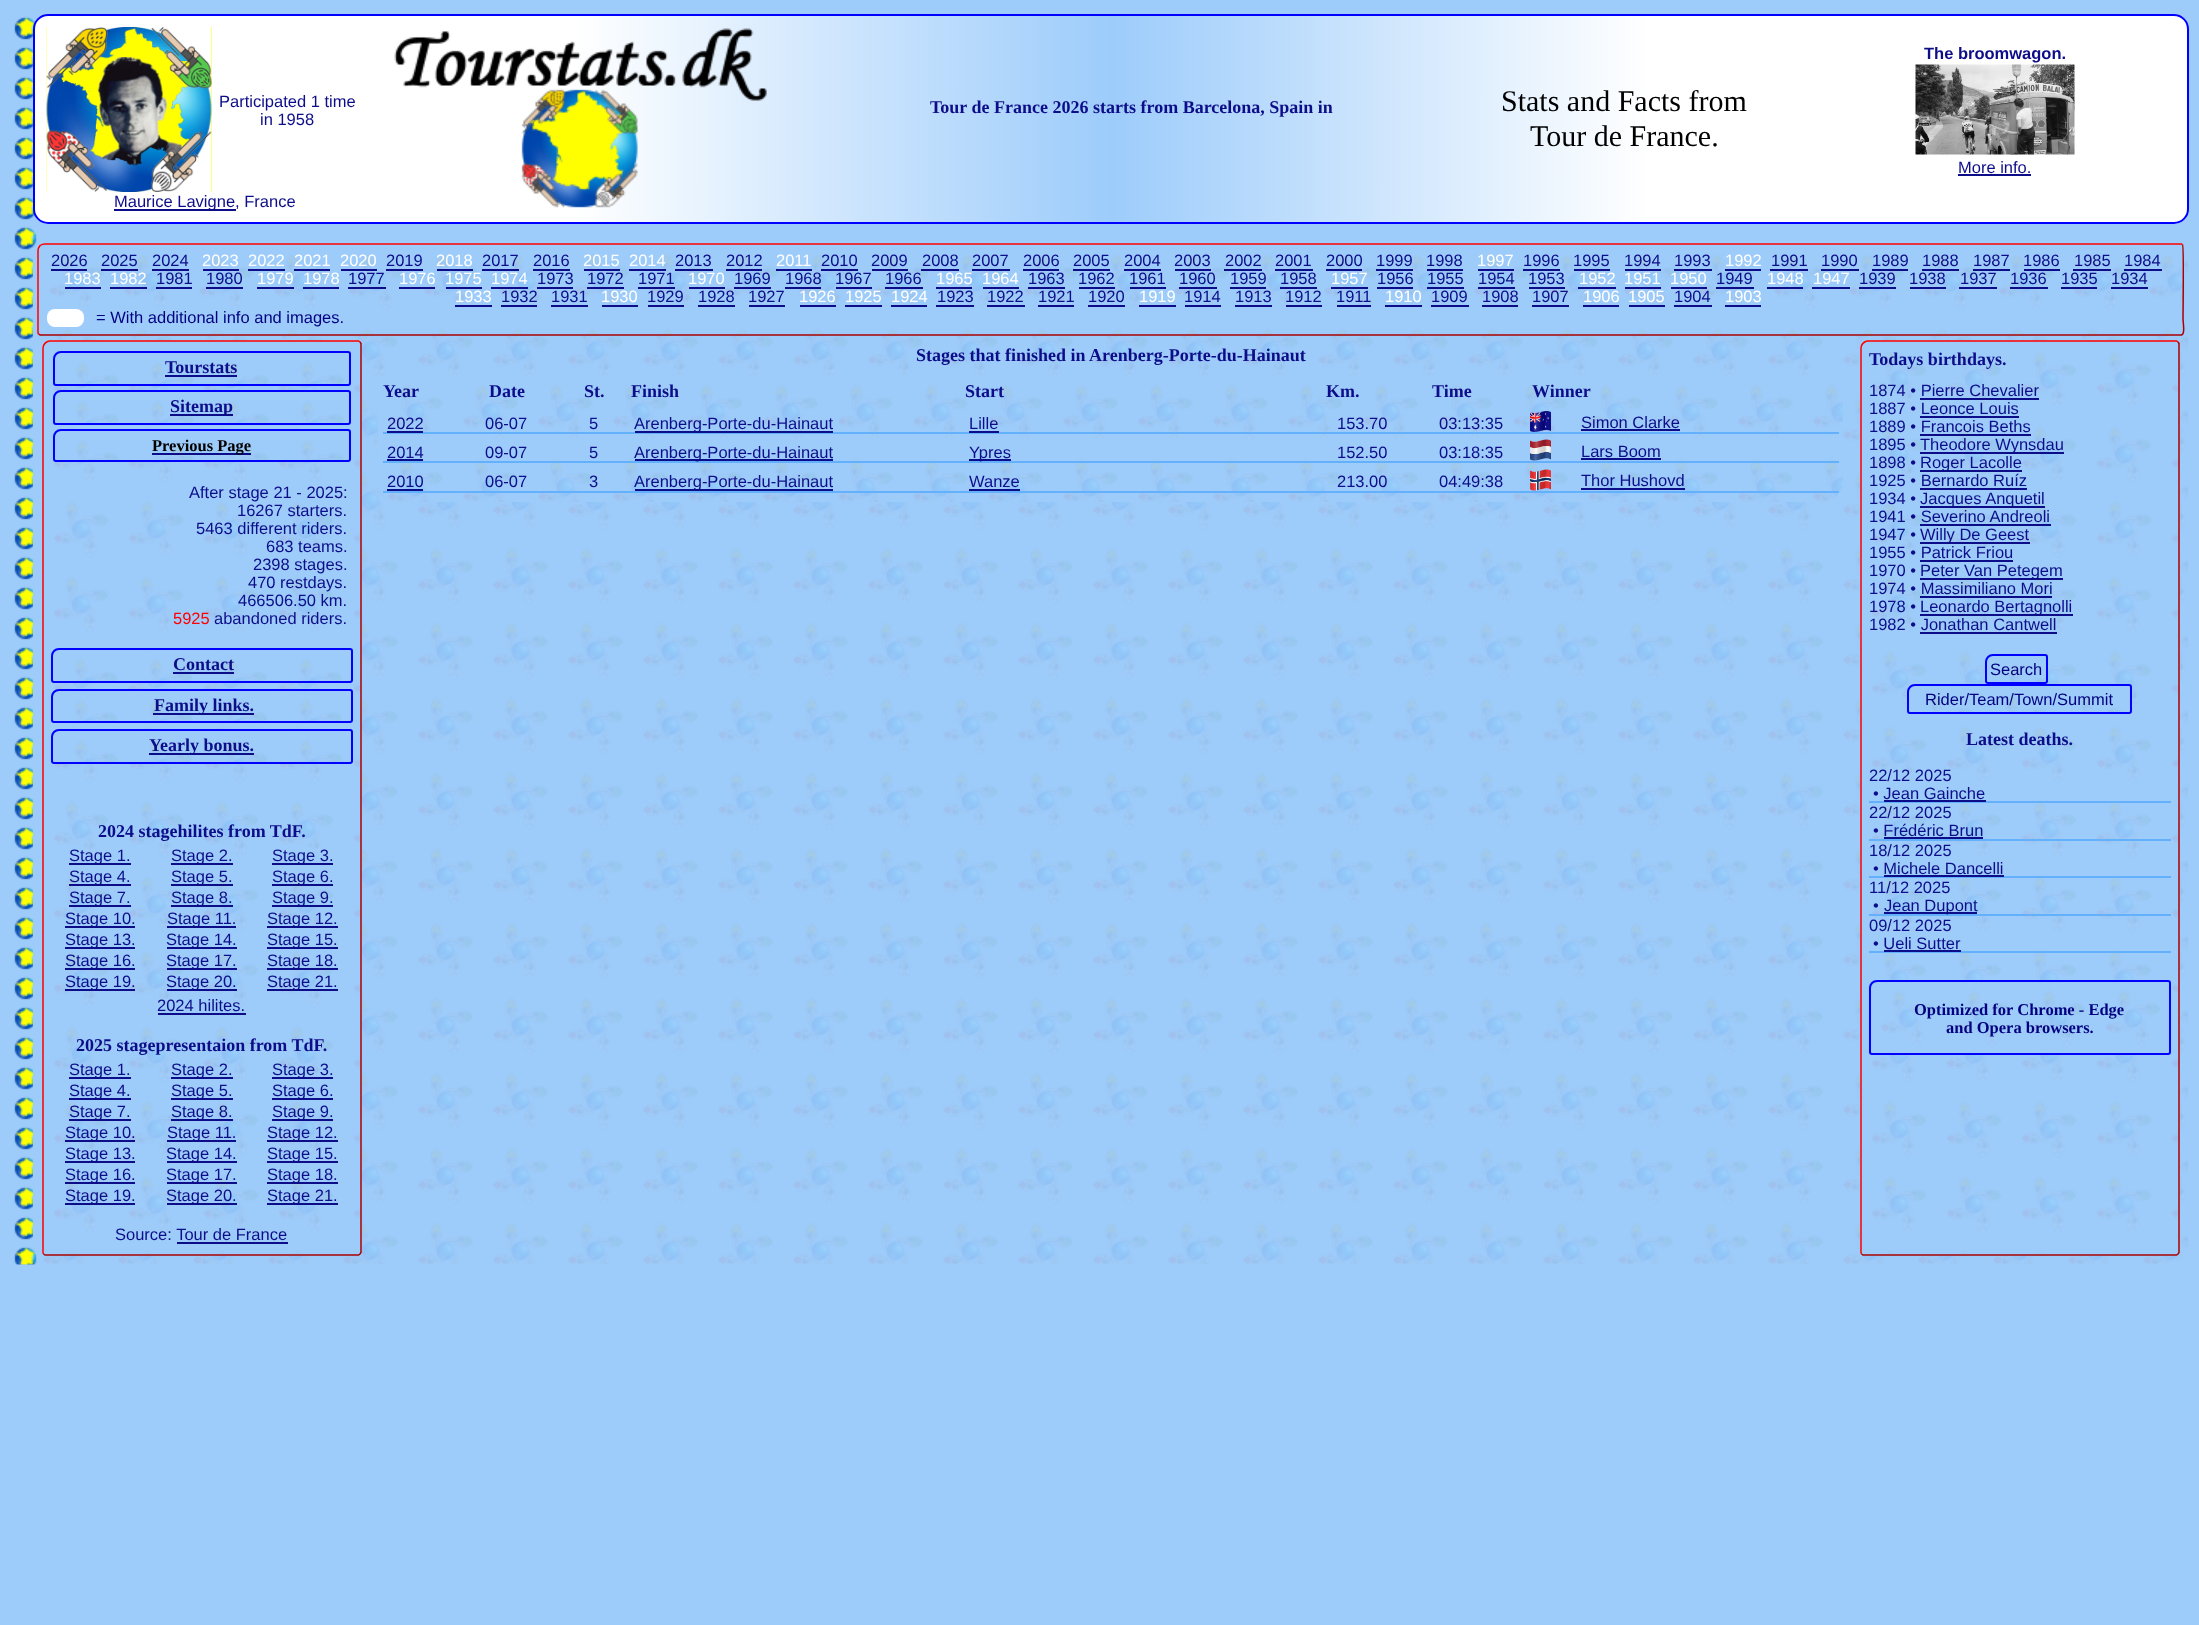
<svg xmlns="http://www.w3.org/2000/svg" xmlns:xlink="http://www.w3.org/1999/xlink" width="2199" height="1625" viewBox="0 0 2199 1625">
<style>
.cls-1{font:16.5px Liberation Sans;fill:#0d0d89}
.cls-2{font:bold 18px Liberation Serif;fill:#0d0d89}
.cls-3{font:30px Liberation Serif;fill:#000000}
.cls-4{font:bold 16.5px Liberation Sans;fill:#0d0d89}
.cls-5{font:16.5px Liberation Sans;fill:#ffffff}
.cls-6{font:16.5px Liberation Sans;fill:#000080}
.cls-7{font:bold 16.5px Liberation Serif;fill:#000000}
.cls-8{font:16.5px Liberation Sans;fill:#ff0000}
.cls-9{font:bold 16.5px Liberation Serif;fill:#000080}
</style>
<defs>
<clipPath id="clip1"><rect x="33" y="14" width="2156" height="210" rx="15"/></clipPath>
<linearGradient id="g1" gradientUnits="userSpaceOnUse" x1="2187" y1="119" x2="35" y2="118"><stop offset="0" stop-color="#ffffff"/><stop offset="0.25" stop-color="#ffffff"/><stop offset="0.5" stop-color="#9dccfb"/><stop offset="0.75" stop-color="#ffffff"/><stop offset="1" stop-color="#ffffff"/></linearGradient>
</defs>
<rect width="100%" height="100%" fill="#9dccfb"/>
<image xlink:href="image0.png" x="14" y="16" width="23" height="1249"/>
<g clip-path="url(#clip1)">
<rect fill="url(#g1)" x="35" y="14" width="2152" height="210"/>
</g>
<rect fill="none" stroke="#0000ff" stroke-width="2" x="34" y="15" width="2154" height="208" rx="14"/>
<rect fill="#ffff00" x="182" y="27" width="30" height="165"/>
<image xlink:href="image1.png" x="46" y="27" width="136" height="165"/>
<image xlink:href="image2.png" x="46" y="27" width="166" height="165"/>
<rect fill="#0d0d89" x="114" y="209" width="122" height="2"/>
<image xlink:href="image3.png" x="394" y="28" width="373" height="180"/>
<image xlink:href="image4.png" x="1915" y="64" width="160" height="91"/>
<rect fill="#0d0d89" x="1958" y="174" width="73" height="2"/>
<image xlink:href="image5.png" x="33" y="249" width="2155" height="1015"/>
<path fill="#9dccfb" d="M46 243H2181C2182.5 243 2184 244.5 2184 246V333C2184 334.5 2182.5 336 2181 336H41C39.5 336 38 334.5 38 333V251C38 246.5 41.5 243 46 243Z"/>
<image xlink:href="image6.png" x="49" y="255" width="2135" height="81"/>
<path fill="none" stroke="#aa0000" stroke-width="1.5" d="M2182.5 244.5C2184 246 2183 310.5 2183 318.5C2183 322.5 2185.5 335 2181 335H40.5L39 334.5"/>
<path fill="none" stroke="#ff0000" stroke-width="1.5" d="M39 334.5L38 333V250.5C38 248.5 39 247 40 245.5C41.5 244.5 43 244 45 244H2181L2182.5 244.5"/>
<rect fill="#0d0d89" x="51" y="269" width="36" height="2"/>
<rect fill="#0d0d89" x="101" y="269" width="37" height="2"/>
<rect fill="#0d0d89" x="152" y="269" width="37" height="2"/>
<rect fill="#0d0d89" x="203" y="269" width="36" height="2"/>
<rect fill="#0d0d89" x="248" y="269" width="37" height="2"/>
<rect fill="#0d0d89" x="294" y="269" width="36" height="2"/>
<rect fill="#0d0d89" x="341" y="269" width="36" height="2"/>
<rect fill="#0d0d89" x="386" y="269" width="37" height="2"/>
<rect fill="#0d0d89" x="437" y="269" width="36" height="2"/>
<rect fill="#0d0d89" x="482" y="269" width="37" height="2"/>
<rect fill="#0d0d89" x="533" y="269" width="37" height="2"/>
<rect fill="#0d0d89" x="584" y="269" width="36" height="2"/>
<rect fill="#0d0d89" x="629" y="269" width="37" height="2"/>
<rect fill="#0d0d89" x="675" y="269" width="38" height="2"/>
<rect fill="#0d0d89" x="726" y="269" width="36" height="2"/>
<rect fill="#0d0d89" x="776" y="269" width="36" height="2"/>
<rect fill="#0d0d89" x="821" y="269" width="37" height="2"/>
<rect fill="#0d0d89" x="872" y="269" width="36" height="2"/>
<rect fill="#0d0d89" x="921" y="269" width="38" height="2"/>
<rect fill="#0d0d89" x="972" y="269" width="38" height="2"/>
<rect fill="#0d0d89" x="1023" y="269" width="36" height="2"/>
<rect fill="#0d0d89" x="1073" y="269" width="37" height="2"/>
<rect fill="#0d0d89" x="1124" y="269" width="37" height="2"/>
<rect fill="#0d0d89" x="1175" y="269" width="36" height="2"/>
<rect fill="#0d0d89" x="1224" y="269" width="38" height="2"/>
<rect fill="#0d0d89" x="1275" y="269" width="38" height="2"/>
<rect fill="#0d0d89" x="1326" y="269" width="36" height="2"/>
<rect fill="#0d0d89" x="1376" y="269" width="37" height="2"/>
<rect fill="#0d0d89" x="1427" y="269" width="36" height="2"/>
<rect fill="#0d0d89" x="1478" y="269" width="36" height="2"/>
<rect fill="#0d0d89" x="1523" y="269" width="37" height="2"/>
<rect fill="#0d0d89" x="1574" y="269" width="36" height="2"/>
<rect fill="#0d0d89" x="1625" y="269" width="36" height="2"/>
<rect fill="#0d0d89" x="1674" y="269" width="38" height="2"/>
<rect fill="#0d0d89" x="1725" y="269" width="36" height="2"/>
<rect fill="#0d0d89" x="1770" y="269" width="38" height="2"/>
<rect fill="#0d0d89" x="1821" y="269" width="38" height="2"/>
<rect fill="#0d0d89" x="1872" y="269" width="36" height="2"/>
<rect fill="#0d0d89" x="1922" y="269" width="37" height="2"/>
<rect fill="#0d0d89" x="1973" y="269" width="37" height="2"/>
<rect fill="#0d0d89" x="2024" y="269" width="36" height="2"/>
<rect fill="#0d0d89" x="2073" y="269" width="38" height="2"/>
<rect fill="#0d0d89" x="2124" y="269" width="38" height="2"/>
<rect fill="#0d0d89" x="65" y="287" width="36" height="2"/>
<rect fill="#0d0d89" x="110" y="287" width="37" height="2"/>
<rect fill="#0d0d89" x="156" y="287" width="36" height="2"/>
<rect fill="#0d0d89" x="206" y="287" width="37" height="2"/>
<rect fill="#0d0d89" x="257" y="287" width="37" height="2"/>
<rect fill="#0d0d89" x="303" y="287" width="36" height="2"/>
<rect fill="#0d0d89" x="348" y="287" width="38" height="2"/>
<rect fill="#0d0d89" x="399" y="287" width="36" height="2"/>
<rect fill="#0d0d89" x="446" y="287" width="36" height="2"/>
<rect fill="#0d0d89" x="491" y="287" width="37" height="2"/>
<rect fill="#0d0d89" x="537" y="287" width="36" height="2"/>
<rect fill="#0d0d89" x="587" y="287" width="37" height="2"/>
<rect fill="#0d0d89" x="638" y="287" width="37" height="2"/>
<rect fill="#0d0d89" x="689" y="287" width="36" height="2"/>
<rect fill="#0d0d89" x="734" y="287" width="37" height="2"/>
<rect fill="#0d0d89" x="785" y="287" width="36" height="2"/>
<rect fill="#0d0d89" x="836" y="287" width="36" height="2"/>
<rect fill="#0d0d89" x="885" y="287" width="38" height="2"/>
<rect fill="#0d0d89" x="936" y="287" width="36" height="2"/>
<rect fill="#0d0d89" x="983" y="287" width="36" height="2"/>
<rect fill="#0d0d89" x="1028" y="287" width="37" height="2"/>
<rect fill="#0d0d89" x="1079" y="287" width="36" height="2"/>
<rect fill="#0d0d89" x="1130" y="287" width="36" height="2"/>
<rect fill="#0d0d89" x="1179" y="287" width="38" height="2"/>
<rect fill="#0d0d89" x="1230" y="287" width="36" height="2"/>
<rect fill="#0d0d89" x="1280" y="287" width="37" height="2"/>
<rect fill="#0d0d89" x="1331" y="287" width="37" height="2"/>
<rect fill="#0d0d89" x="1377" y="287" width="36" height="2"/>
<rect fill="#0d0d89" x="1427" y="287" width="37" height="2"/>
<rect fill="#0d0d89" x="1478" y="287" width="37" height="2"/>
<rect fill="#0d0d89" x="1529" y="287" width="36" height="2"/>
<rect fill="#0d0d89" x="1578" y="287" width="38" height="2"/>
<rect fill="#0d0d89" x="1625" y="287" width="36" height="2"/>
<rect fill="#0d0d89" x="1671" y="287" width="36" height="2"/>
<rect fill="#0d0d89" x="1716" y="287" width="38" height="2"/>
<rect fill="#0d0d89" x="1767" y="287" width="36" height="2"/>
<rect fill="#0d0d89" x="1812" y="287" width="38" height="2"/>
<rect fill="#0d0d89" x="1859" y="287" width="37" height="2"/>
<rect fill="#0d0d89" x="1910" y="287" width="36" height="2"/>
<rect fill="#0d0d89" x="1959" y="287" width="38" height="2"/>
<rect fill="#0d0d89" x="2010" y="287" width="38" height="2"/>
<rect fill="#0d0d89" x="2061" y="287" width="36" height="2"/>
<rect fill="#0d0d89" x="2111" y="287" width="37" height="2"/>
<rect fill="#0d0d89" x="455" y="305" width="37" height="2"/>
<rect fill="#0d0d89" x="501" y="305" width="36" height="2"/>
<rect fill="#0d0d89" x="551" y="305" width="37" height="2"/>
<rect fill="#0d0d89" x="602" y="305" width="36" height="2"/>
<rect fill="#0d0d89" x="648" y="305" width="36" height="2"/>
<rect fill="#0d0d89" x="698" y="305" width="37" height="2"/>
<rect fill="#0d0d89" x="749" y="305" width="36" height="2"/>
<rect fill="#0d0d89" x="800" y="305" width="36" height="2"/>
<rect fill="#0d0d89" x="845" y="305" width="37" height="2"/>
<rect fill="#0d0d89" x="891" y="305" width="36" height="2"/>
<rect fill="#0d0d89" x="936" y="305" width="38" height="2"/>
<rect fill="#0d0d89" x="987" y="305" width="38" height="2"/>
<rect fill="#0d0d89" x="1038" y="305" width="36" height="2"/>
<rect fill="#0d0d89" x="1088" y="305" width="37" height="2"/>
<rect fill="#0d0d89" x="1139" y="305" width="37" height="2"/>
<rect fill="#0d0d89" x="1185" y="305" width="36" height="2"/>
<rect fill="#0d0d89" x="1235" y="305" width="37" height="2"/>
<rect fill="#0d0d89" x="1286" y="305" width="36" height="2"/>
<rect fill="#0d0d89" x="1337" y="305" width="34" height="2"/>
<rect fill="#0d0d89" x="1385" y="305" width="37" height="2"/>
<rect fill="#0d0d89" x="1431" y="305" width="38" height="2"/>
<rect fill="#0d0d89" x="1482" y="305" width="36" height="2"/>
<rect fill="#0d0d89" x="1532" y="305" width="37" height="2"/>
<rect fill="#0d0d89" x="1583" y="305" width="36" height="2"/>
<rect fill="#0d0d89" x="1629" y="305" width="36" height="2"/>
<rect fill="#0d0d89" x="1674" y="305" width="38" height="2"/>
<rect fill="#0d0d89" x="1725" y="305" width="36" height="2"/>
<rect fill="#ffffff" x="47" y="309" width="37" height="18" rx="8"/>
<path fill="#9dccfb" d="M50 341H359C360.5 341 362 342.5 362 344V1253C362 1254.5 360.5 1256 359 1256H45C43.5 1256 42 1254.5 42 1253V349C42 344.5 45.5 341 50 341Z"/>
<image xlink:href="image7.png" x="54" y="352" width="307" height="904"/>
<path fill="none" stroke="#aa0000" stroke-width="1.5" d="M360 342L361 343.5V1252.5L360 1254L358.5 1255H45L43.5 1254"/>
<path fill="none" stroke="#ff0000" stroke-width="1.5" d="M43.5 1254L43 1252.5V348C43 344.5 46 341.5 49.5 341H358.5L360 342"/>
<image xlink:href="image8.png" x="57" y="352" width="287" height="32"/>
<path fill="none" stroke="#0000ff" stroke-width="2" d="M61 352H348C349 352 350 353 350 354V383C350 384 349 385 348 385H56C55 385 54 384 54 383V359C54 355 57 352 61 352Z"/>
<rect fill="#0d0d89" x="165" y="375" width="72" height="2"/>
<image xlink:href="image9.png" x="56" y="390" width="288" height="33"/>
<path fill="none" stroke="#0000ff" stroke-width="2" d="M61 391H348C349 391 350 392 350 393V422C350 423 349 424 348 424H56C55 424 54 423 54 422V398C54 394 57 391 61 391Z"/>
<rect fill="#0d0d89" x="170" y="414" width="63" height="2"/>
<image xlink:href="image10.png" x="55" y="429" width="289" height="33"/>
<path fill="none" stroke="#0000ff" stroke-width="2" d="M61 430H348C349 430 350 431 350 432V459C350 460 349 461 348 461H56C55 461 54 460 54 459V437C54 433 57 430 61 430Z"/>
<image xlink:href="image11.png" x="150" y="435" width="102" height="21"/>
<rect fill="#0d0d89" x="152" y="453" width="99" height="2"/>
<image xlink:href="image12.png" x="66" y="652" width="276" height="29"/>
<path fill="none" stroke="#0000ff" stroke-width="2" d="M59 649H350C351 649 352 650 352 651V680C352 681 351 682 350 682H54C53 682 52 681 52 680V656C52 652 55 649 59 649Z"/>
<rect fill="#0d0d89" x="173" y="672" width="61" height="2"/>
<image xlink:href="image13.png" x="55" y="689" width="287" height="32"/>
<path fill="none" stroke="#0000ff" stroke-width="2" d="M59 690H350C351 690 352 691 352 692V720C352 721 351 722 350 722H54C53 722 52 721 52 720V697C52 693 55 690 59 690Z"/>
<rect fill="#0d0d89" x="153" y="713" width="101" height="2"/>
<image xlink:href="image14.png" x="54" y="729" width="288" height="33"/>
<path fill="none" stroke="#0000ff" stroke-width="2" d="M59 730H350C351 730 352 731 352 732V761C352 762 351 763 350 763H54C53 763 52 762 52 761V737C52 733 55 730 59 730Z"/>
<rect fill="#0d0d89" x="149" y="753" width="105" height="2"/>
<rect fill="#0d0d89" x="69" y="863" width="62" height="2"/>
<rect fill="#0d0d89" x="171" y="863" width="62" height="2"/>
<rect fill="#0d0d89" x="272" y="863" width="61" height="2"/>
<rect fill="#0d0d89" x="69" y="884" width="62" height="2"/>
<rect fill="#0d0d89" x="171" y="884" width="62" height="2"/>
<rect fill="#0d0d89" x="272" y="884" width="61" height="2"/>
<rect fill="#0d0d89" x="69" y="905" width="62" height="2"/>
<rect fill="#0d0d89" x="171" y="905" width="62" height="2"/>
<rect fill="#0d0d89" x="272" y="905" width="61" height="2"/>
<rect fill="#0d0d89" x="65" y="926" width="70" height="2"/>
<rect fill="#0d0d89" x="167" y="926" width="69" height="2"/>
<rect fill="#0d0d89" x="267" y="926" width="71" height="2"/>
<rect fill="#0d0d89" x="65" y="947" width="70" height="2"/>
<rect fill="#0d0d89" x="167" y="947" width="70" height="2"/>
<rect fill="#0d0d89" x="267" y="947" width="71" height="2"/>
<rect fill="#0d0d89" x="65" y="968" width="70" height="2"/>
<rect fill="#0d0d89" x="167" y="968" width="70" height="2"/>
<rect fill="#0d0d89" x="267" y="968" width="71" height="2"/>
<rect fill="#0d0d89" x="65" y="989" width="70" height="2"/>
<rect fill="#0d0d89" x="167" y="989" width="70" height="2"/>
<rect fill="#0d0d89" x="267" y="989" width="71" height="2"/>
<rect fill="#0d0d89" x="158" y="1013" width="88" height="2"/>
<rect fill="#0d0d89" x="69" y="1077" width="62" height="2"/>
<rect fill="#0d0d89" x="171" y="1077" width="62" height="2"/>
<rect fill="#0d0d89" x="272" y="1077" width="61" height="2"/>
<rect fill="#0d0d89" x="69" y="1098" width="62" height="2"/>
<rect fill="#0d0d89" x="171" y="1098" width="62" height="2"/>
<rect fill="#0d0d89" x="272" y="1098" width="61" height="2"/>
<rect fill="#0d0d89" x="69" y="1119" width="62" height="2"/>
<rect fill="#0d0d89" x="171" y="1119" width="62" height="2"/>
<rect fill="#0d0d89" x="272" y="1119" width="61" height="2"/>
<rect fill="#0d0d89" x="65" y="1140" width="70" height="2"/>
<rect fill="#0d0d89" x="167" y="1140" width="69" height="2"/>
<rect fill="#0d0d89" x="267" y="1140" width="71" height="2"/>
<rect fill="#0d0d89" x="65" y="1161" width="70" height="2"/>
<rect fill="#0d0d89" x="167" y="1161" width="70" height="2"/>
<rect fill="#0d0d89" x="267" y="1161" width="71" height="2"/>
<rect fill="#0d0d89" x="65" y="1182" width="70" height="2"/>
<rect fill="#0d0d89" x="167" y="1182" width="70" height="2"/>
<rect fill="#0d0d89" x="267" y="1182" width="71" height="2"/>
<rect fill="#0d0d89" x="65" y="1203" width="70" height="2"/>
<rect fill="#0d0d89" x="167" y="1203" width="70" height="2"/>
<rect fill="#0d0d89" x="267" y="1203" width="71" height="2"/>
<rect fill="#0d0d89" x="177" y="1242" width="111" height="2"/>
<image xlink:href="image15.png" x="378" y="375" width="1465" height="127"/>
<rect fill="#63b0fd" x="383" y="432" width="1456" height="2"/>
<rect fill="#0d0d89" x="387" y="431" width="36" height="2"/>
<rect fill="#0d0d89" x="635" y="431" width="198" height="2"/>
<rect fill="#0d0d89" x="969" y="431" width="30" height="2"/>
<image xlink:href="image16.png" x="1530" y="411" width="21" height="21"/>
<rect fill="#0d0d89" x="1581" y="429" width="99" height="2"/>
<rect fill="#63b0fd" x="383" y="461" width="1456" height="2"/>
<rect fill="#0d0d89" x="387" y="459" width="36" height="2"/>
<rect fill="#0d0d89" x="635" y="459" width="198" height="2"/>
<rect fill="#0d0d89" x="969" y="459" width="42" height="2"/>
<image xlink:href="image17.png" x="1530" y="439" width="21" height="22"/>
<rect fill="#0d0d89" x="1581" y="458" width="80" height="2"/>
<rect fill="#63b0fd" x="383" y="491" width="1456" height="2"/>
<rect fill="#0d0d89" x="387" y="489" width="36" height="2"/>
<rect fill="#0d0d89" x="635" y="489" width="198" height="2"/>
<rect fill="#0d0d89" x="969" y="489" width="51" height="2"/>
<image xlink:href="image18.png" x="1530" y="469" width="21" height="22"/>
<rect fill="#0d0d89" x="1581" y="488" width="104" height="2"/>
<path fill="#9dccfb" d="M1868 341H2177C2178.5 341 2180 342.5 2180 344V1253C2180 1254.5 2178.5 1256 2177 1256H1863C1861.5 1256 1860 1254.5 1860 1253V349C1860 344.5 1863.5 341 1868 341Z"/>
<image xlink:href="image19.png" x="1872" y="352" width="307" height="904"/>
<path fill="none" stroke="#aa0000" stroke-width="1.5" d="M2178 342L2179 343.5V1252.5L2178 1254L2176.5 1255H1863L1861.5 1254"/>
<path fill="none" stroke="#ff0000" stroke-width="1.5" d="M1861.5 1254L1861 1252.5V348C1861 344.5 1864 341.5 1867.5 341H2176.5L2178 342"/>
<rect fill="#0d0d89" x="1920" y="398" width="119" height="2"/>
<rect fill="#0d0d89" x="1920" y="416" width="99" height="2"/>
<rect fill="#0d0d89" x="1920" y="434" width="111" height="2"/>
<rect fill="#0d0d89" x="1920" y="452" width="144" height="2"/>
<rect fill="#0d0d89" x="1920" y="470" width="102" height="2"/>
<rect fill="#0d0d89" x="1920" y="488" width="107" height="2"/>
<rect fill="#0d0d89" x="1920" y="506" width="125" height="2"/>
<rect fill="#0d0d89" x="1920" y="524" width="131" height="2"/>
<rect fill="#0d0d89" x="1920" y="542" width="110" height="2"/>
<rect fill="#0d0d89" x="1920" y="560" width="93" height="2"/>
<rect fill="#0d0d89" x="1920" y="578" width="143" height="2"/>
<rect fill="#0d0d89" x="1920" y="596" width="132" height="2"/>
<rect fill="#0d0d89" x="1920" y="614" width="153" height="2"/>
<rect fill="#0d0d89" x="1920" y="632" width="137" height="2"/>
<image xlink:href="image20.png" x="1985" y="654" width="63" height="30"/>
<path fill="none" stroke="#0000ff" stroke-width="2" d="M1993 655H2045C2046 655 2047 656 2047 657V681C2047 682 2046 683 2045 683H1988C1987 683 1986 682 1986 681V662C1986 658 1989 655 1993 655Z"/>
<image xlink:href="image21.png" x="1907" y="684" width="225" height="30"/>
<path fill="none" stroke="#0000ff" stroke-width="2" d="M1915 685H2129C2130 685 2131 686 2131 687V711C2131 712 2130 713 2129 713H1910C1909 713 1908 712 1908 711V692C1908 688 1911 685 1915 685Z"/>
<rect fill="#63b0fd" x="1869" y="801" width="302" height="2"/>
<rect fill="#0d0d89" x="1884" y="800" width="102" height="2"/>
<rect fill="#63b0fd" x="1869" y="839" width="302" height="2"/>
<rect fill="#0d0d89" x="1884" y="837" width="99" height="2"/>
<rect fill="#63b0fd" x="1869" y="876" width="302" height="2"/>
<rect fill="#0d0d89" x="1884" y="875" width="120" height="2"/>
<rect fill="#63b0fd" x="1869" y="914" width="302" height="2"/>
<rect fill="#0d0d89" x="1884" y="912" width="93" height="2"/>
<rect fill="#63b0fd" x="1869" y="951" width="302" height="2"/>
<rect fill="#0d0d89" x="1884" y="950" width="77" height="2"/>
<image xlink:href="image22.png" x="1872" y="980" width="288" height="73"/>
<path fill="none" stroke="#0000ff" stroke-width="2" d="M1877 981H2168C2169 981 2170 982 2170 983V1052C2170 1053 2169 1054 2168 1054H1872C1871 1054 1870 1053 1870 1052V988C1870 984 1873 981 1877 981Z"/>
<text class="cls-1" x="219" y="107">Participated 1 time</text>
<text class="cls-1" x="260" y="125">in 1958</text>
<text class="cls-1" x="114" y="207">Maurice Lavigne, France</text>
<text class="cls-2" x="930" y="113">Tour de France 2026 starts from Barcelona, Spain in</text>
<text class="cls-3" x="1501" y="111">Stats and Facts from</text>
<text class="cls-3" x="1530" y="146">Tour de France.</text>
<text class="cls-4" x="1924" y="59">The broomwagon.</text>
<text class="cls-1" x="1958" y="173">More info.</text>
<text class="cls-1" x="51" y="266">2026</text>
<text class="cls-1" x="101" y="266">2025</text>
<text class="cls-1" x="152" y="266">2024</text>
<text class="cls-5" x="202" y="266">2023</text>
<text class="cls-5" x="248" y="266">2022</text>
<text class="cls-5" x="294" y="266">2021</text>
<text class="cls-5" x="340" y="266">2020</text>
<text class="cls-1" x="386" y="266">2019</text>
<text class="cls-5" x="436" y="266">2018</text>
<text class="cls-1" x="482" y="266">2017</text>
<text class="cls-1" x="533" y="266">2016</text>
<text class="cls-5" x="583" y="266">2015</text>
<text class="cls-5" x="629" y="266">2014</text>
<text class="cls-1" x="675" y="266">2013</text>
<text class="cls-1" x="726" y="266">2012</text>
<text class="cls-5" x="776" y="266">2011</text>
<text class="cls-1" x="821" y="266">2010</text>
<text class="cls-1" x="871" y="266">2009</text>
<text class="cls-1" x="922" y="266">2008</text>
<text class="cls-1" x="972" y="266">2007</text>
<text class="cls-1" x="1023" y="266">2006</text>
<text class="cls-1" x="1073" y="266">2005</text>
<text class="cls-1" x="1124" y="266">2004</text>
<text class="cls-1" x="1174" y="266">2003</text>
<text class="cls-1" x="1225" y="266">2002</text>
<text class="cls-1" x="1275" y="266">2001</text>
<text class="cls-1" x="1326" y="266">2000</text>
<text class="cls-1" x="1376" y="266">1999</text>
<text class="cls-1" x="1426" y="266">1998</text>
<text class="cls-5" x="1477" y="266">1997</text>
<text class="cls-1" x="1523" y="266">1996</text>
<text class="cls-1" x="1573" y="266">1995</text>
<text class="cls-1" x="1624" y="266">1994</text>
<text class="cls-1" x="1674" y="266">1993</text>
<text class="cls-5" x="1725" y="266">1992</text>
<text class="cls-1" x="1771" y="266">1991</text>
<text class="cls-1" x="1821" y="266">1990</text>
<text class="cls-1" x="1872" y="266">1989</text>
<text class="cls-1" x="1922" y="266">1988</text>
<text class="cls-1" x="1973" y="266">1987</text>
<text class="cls-1" x="2023" y="266">1986</text>
<text class="cls-1" x="2074" y="266">1985</text>
<text class="cls-1" x="2124" y="266">1984</text>
<text class="cls-5" x="64" y="284">1983</text>
<text class="cls-5" x="110" y="284">1982</text>
<text class="cls-1" x="156" y="284">1981</text>
<text class="cls-1" x="206" y="284">1980</text>
<text class="cls-5" x="257" y="284">1979</text>
<text class="cls-5" x="303" y="284">1978</text>
<text class="cls-1" x="348" y="284">1977</text>
<text class="cls-5" x="399" y="284">1976</text>
<text class="cls-5" x="445" y="284">1975</text>
<text class="cls-5" x="491" y="284">1974</text>
<text class="cls-1" x="537" y="284">1973</text>
<text class="cls-1" x="587" y="284">1972</text>
<text class="cls-1" x="638" y="284">1971</text>
<text class="cls-5" x="688" y="284">1970</text>
<text class="cls-1" x="734" y="284">1969</text>
<text class="cls-1" x="785" y="284">1968</text>
<text class="cls-1" x="835" y="284">1967</text>
<text class="cls-1" x="885" y="284">1966</text>
<text class="cls-5" x="936" y="284">1965</text>
<text class="cls-5" x="982" y="284">1964</text>
<text class="cls-1" x="1028" y="284">1963</text>
<text class="cls-1" x="1078" y="284">1962</text>
<text class="cls-1" x="1129" y="284">1961</text>
<text class="cls-1" x="1179" y="284">1960</text>
<text class="cls-1" x="1230" y="284">1959</text>
<text class="cls-1" x="1280" y="284">1958</text>
<text class="cls-5" x="1331" y="284">1957</text>
<text class="cls-1" x="1377" y="284">1956</text>
<text class="cls-1" x="1427" y="284">1955</text>
<text class="cls-1" x="1478" y="284">1954</text>
<text class="cls-1" x="1528" y="284">1953</text>
<text class="cls-5" x="1579" y="284">1952</text>
<text class="cls-5" x="1624" y="284">1951</text>
<text class="cls-5" x="1670" y="284">1950</text>
<text class="cls-1" x="1716" y="284">1949</text>
<text class="cls-5" x="1767" y="284">1948</text>
<text class="cls-5" x="1813" y="284">1947</text>
<text class="cls-1" x="1859" y="284">1939</text>
<text class="cls-1" x="1909" y="284">1938</text>
<text class="cls-1" x="1960" y="284">1937</text>
<text class="cls-1" x="2010" y="284">1936</text>
<text class="cls-1" x="2061" y="284">1935</text>
<text class="cls-1" x="2111" y="284">1934</text>
<text class="cls-5" x="455" y="302">1933</text>
<text class="cls-1" x="501" y="302">1932</text>
<text class="cls-1" x="551" y="302">1931</text>
<text class="cls-5" x="601" y="302">1930</text>
<text class="cls-1" x="647" y="302">1929</text>
<text class="cls-1" x="698" y="302">1928</text>
<text class="cls-1" x="748" y="302">1927</text>
<text class="cls-5" x="799" y="302">1926</text>
<text class="cls-5" x="845" y="302">1925</text>
<text class="cls-5" x="891" y="302">1924</text>
<text class="cls-1" x="937" y="302">1923</text>
<text class="cls-1" x="987" y="302">1922</text>
<text class="cls-1" x="1038" y="302">1921</text>
<text class="cls-1" x="1088" y="302">1920</text>
<text class="cls-5" x="1139" y="302">1919</text>
<text class="cls-1" x="1184" y="302">1914</text>
<text class="cls-1" x="1235" y="302">1913</text>
<text class="cls-1" x="1285" y="302">1912</text>
<text class="cls-1" x="1336" y="302">1911</text>
<text class="cls-5" x="1385" y="302">1910</text>
<text class="cls-1" x="1431" y="302">1909</text>
<text class="cls-1" x="1482" y="302">1908</text>
<text class="cls-1" x="1532" y="302">1907</text>
<text class="cls-5" x="1583" y="302">1906</text>
<text class="cls-5" x="1628" y="302">1905</text>
<text class="cls-1" x="1674" y="302">1904</text>
<text class="cls-5" x="1725" y="302">1903</text>
<text class="cls-6" x="96" y="323">= With additional info and images.</text>
<text class="cls-2" x="165" y="373">Tourstats</text>
<text class="cls-2" x="170" y="412">Sitemap</text>
<text class="cls-7" x="152" y="451">Previous Page</text>
<text class="cls-1" x="189" y="498">After stage 21 - 2025:</text>
<text class="cls-1" x="237" y="516">16267 starters.</text>
<text class="cls-1" x="196" y="534">5463 different riders.</text>
<text class="cls-1" x="266" y="552">683 teams.</text>
<text class="cls-1" x="253" y="570">2398 stages.</text>
<text class="cls-1" x="248" y="588">470 restdays.</text>
<text class="cls-1" x="238" y="606">466506.50 km.</text>
<text class="cls-8" x="173" y="624">5925</text>
<text class="cls-1" x="214" y="624">abandoned riders.</text>
<text class="cls-2" x="173" y="670">Contact</text>
<text class="cls-2" x="154" y="711">Family links.</text>
<text class="cls-2" x="149" y="751">Yearly bonus.</text>
<text class="cls-2" x="98" y="837">2024 stagehilites from TdF.</text>
<text class="cls-1" x="69" y="861">Stage 1.</text>
<text class="cls-1" x="171" y="861">Stage 2.</text>
<text class="cls-1" x="272" y="861">Stage 3.</text>
<text class="cls-1" x="69" y="882">Stage 4.</text>
<text class="cls-1" x="171" y="882">Stage 5.</text>
<text class="cls-1" x="272" y="882">Stage 6.</text>
<text class="cls-1" x="69" y="903">Stage 7.</text>
<text class="cls-1" x="171" y="903">Stage 8.</text>
<text class="cls-1" x="272" y="903">Stage 9.</text>
<text class="cls-1" x="65" y="924">Stage 10.</text>
<text class="cls-1" x="167" y="924">Stage 11.</text>
<text class="cls-1" x="267" y="924">Stage 12.</text>
<text class="cls-1" x="65" y="945">Stage 13.</text>
<text class="cls-1" x="166" y="945">Stage 14.</text>
<text class="cls-1" x="267" y="945">Stage 15.</text>
<text class="cls-1" x="65" y="966">Stage 16.</text>
<text class="cls-1" x="166" y="966">Stage 17.</text>
<text class="cls-1" x="267" y="966">Stage 18.</text>
<text class="cls-1" x="65" y="987">Stage 19.</text>
<text class="cls-1" x="166" y="987">Stage 20.</text>
<text class="cls-1" x="267" y="987">Stage 21.</text>
<text class="cls-1" x="157" y="1011">2024 hilites.</text>
<text class="cls-2" x="76" y="1051">2025 stagepresentaion from TdF.</text>
<text class="cls-1" x="69" y="1075">Stage 1.</text>
<text class="cls-1" x="171" y="1075">Stage 2.</text>
<text class="cls-1" x="272" y="1075">Stage 3.</text>
<text class="cls-1" x="69" y="1096">Stage 4.</text>
<text class="cls-1" x="171" y="1096">Stage 5.</text>
<text class="cls-1" x="272" y="1096">Stage 6.</text>
<text class="cls-1" x="69" y="1117">Stage 7.</text>
<text class="cls-1" x="171" y="1117">Stage 8.</text>
<text class="cls-1" x="272" y="1117">Stage 9.</text>
<text class="cls-1" x="65" y="1138">Stage 10.</text>
<text class="cls-1" x="167" y="1138">Stage 11.</text>
<text class="cls-1" x="267" y="1138">Stage 12.</text>
<text class="cls-1" x="65" y="1159">Stage 13.</text>
<text class="cls-1" x="166" y="1159">Stage 14.</text>
<text class="cls-1" x="267" y="1159">Stage 15.</text>
<text class="cls-1" x="65" y="1180">Stage 16.</text>
<text class="cls-1" x="166" y="1180">Stage 17.</text>
<text class="cls-1" x="267" y="1180">Stage 18.</text>
<text class="cls-1" x="65" y="1201">Stage 19.</text>
<text class="cls-1" x="166" y="1201">Stage 20.</text>
<text class="cls-1" x="267" y="1201">Stage 21.</text>
<text class="cls-1" x="115" y="1240">Source: Tour de France</text>
<text class="cls-2" x="916" y="361">Stages that finished in Arenberg-Porte-du-Hainaut</text>
<text class="cls-2" x="383" y="397">Year</text>
<text class="cls-2" x="489" y="397">Date</text>
<text class="cls-2" x="584" y="397">St.</text>
<text class="cls-2" x="631" y="397">Finish</text>
<text class="cls-2" x="965" y="397">Start</text>
<text class="cls-2" x="1326" y="397">Km.</text>
<text class="cls-2" x="1432" y="397">Time</text>
<text class="cls-2" x="1532" y="397">Winner</text>
<text class="cls-1" x="387" y="429">2022</text>
<text class="cls-1" x="485" y="429">06-07</text>
<text class="cls-1" x="589" y="429">5</text>
<text class="cls-1" x="634" y="429">Arenberg-Porte-du-Hainaut</text>
<text class="cls-1" x="969" y="429">Lille</text>
<text class="cls-1" x="1337" y="429">153.70</text>
<text class="cls-1" x="1439" y="429">03:13:35</text>
<text class="cls-1" x="1581" y="428">Simon Clarke</text>
<text class="cls-1" x="387" y="458">2014</text>
<text class="cls-1" x="485" y="458">09-07</text>
<text class="cls-1" x="589" y="458">5</text>
<text class="cls-1" x="634" y="458">Arenberg-Porte-du-Hainaut</text>
<text class="cls-1" x="969" y="458">Ypres</text>
<text class="cls-1" x="1337" y="458">152.50</text>
<text class="cls-1" x="1439" y="458">03:18:35</text>
<text class="cls-1" x="1581" y="457">Lars Boom</text>
<text class="cls-1" x="387" y="487">2010</text>
<text class="cls-1" x="485" y="487">06-07</text>
<text class="cls-1" x="589" y="487">3</text>
<text class="cls-1" x="634" y="487">Arenberg-Porte-du-Hainaut</text>
<text class="cls-1" x="969" y="487">Wanze</text>
<text class="cls-1" x="1337" y="487">213.00</text>
<text class="cls-1" x="1439" y="487">04:49:38</text>
<text class="cls-1" x="1581" y="486">Thor Hushovd</text>
<text class="cls-2" x="1869" y="365">Todays birthdays.</text>
<text class="cls-1"><tspan x="1869" y="396">1874 • Pierre Chevalier</tspan><tspan x="1869" y="414">1887 • Leonce Louis</tspan><tspan x="1869" y="432">1889 • Francois Beths</tspan><tspan x="1869" y="450">1895 •</tspan></text>
<text class="cls-1" x="1920" y="450">Theodore Wynsdau</text>
<text class="cls-1" x="1869" y="468">1898 •</text>
<text class="cls-1" x="1920" y="468">Roger Lacolle</text>
<text class="cls-1"><tspan x="1869" y="486">1925 • Bernardo Ruíz</tspan><tspan x="1869" y="504">1934 •</tspan></text>
<text class="cls-1" x="1920" y="504">Jacques Anquetil</text>
<text class="cls-1"><tspan x="1869" y="522">1941 • Severino Andreoli</tspan><tspan x="1869" y="540">1947 •</tspan></text>
<text class="cls-1" x="1920" y="540">Willy De Geest</text>
<text class="cls-1"><tspan x="1869" y="558">1955 • Patrick Friou</tspan><tspan x="1869" y="576">1970 •</tspan></text>
<text class="cls-1" x="1920" y="576">Peter Van Petegem</text>
<text class="cls-1"><tspan x="1869" y="594">1974 • Massimiliano Mori</tspan><tspan x="1869" y="612">1978 •</tspan></text>
<text class="cls-1" x="1920" y="612">Leonardo Bertagnolli</text>
<text class="cls-1" x="1869" y="630">1982 • Jonathan Cantwell</text>
<text class="cls-6" x="1990" y="675">Search</text>
<text class="cls-6" x="1925" y="705">Rider/Team/Town/Summit</text>
<text class="cls-2" x="1966" y="745">Latest deaths.</text>
<text class="cls-1" x="1869" y="781">22/12 2025</text>
<text class="cls-1" x="1873" y="799">• Jean Gainche</text>
<text class="cls-1" x="1869" y="818">22/12 2025</text>
<text class="cls-1" x="1873" y="836">• Frédéric Brun</text>
<text class="cls-1" x="1869" y="856">18/12 2025</text>
<text class="cls-1" x="1873" y="874">• Michele Dancelli</text>
<text class="cls-1" x="1869" y="893">11/12 2025</text>
<text class="cls-1" x="1873" y="911">•</text>
<text class="cls-1" x="1884" y="911">Jean Dupont</text>
<text class="cls-1" x="1869" y="931">09/12 2025</text>
<text class="cls-1" x="1873" y="949">• Ueli Sutter</text>
<text class="cls-9" x="1914" y="1015">Optimized for Chrome - Edge</text>
<text class="cls-9" x="1946" y="1033">and Opera browsers.</text>
</svg>
